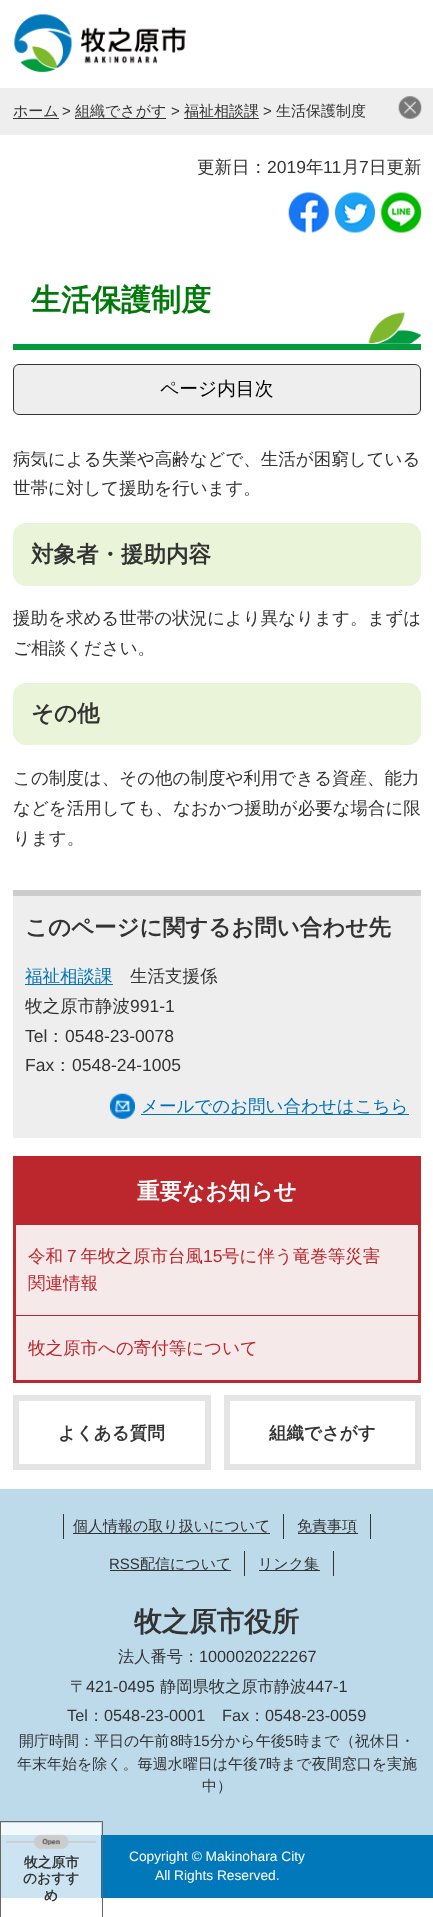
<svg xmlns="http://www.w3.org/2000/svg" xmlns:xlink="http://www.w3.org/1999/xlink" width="433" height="1917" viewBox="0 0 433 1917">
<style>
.cls-1{font:500 15px WenQuanYi Zen Hei;fill:#333333}
.cls-2{font:15px Liberation Sans;fill:#333333}
.cls-3{font:500 17.5px WenQuanYi Zen Hei;fill:#333333}
.cls-4{font:17.5px Liberation Sans;fill:#333333}
.cls-5{font:bold 30px WenQuanYi Zen Hei;fill:#01790a}
.cls-6{font:500 18.75px WenQuanYi Zen Hei;fill:#000000}
.cls-7{font:bold 22.5px WenQuanYi Zen Hei;fill:#333333}
.cls-8{font:500 17.5px WenQuanYi Zen Hei;fill:#0071b7}
.cls-9{font:bold 22.5px WenQuanYi Zen Hei;fill:#ffffff}
.cls-10{font:500 17.5px WenQuanYi Zen Hei;fill:#bc272d}
.cls-11{font:17.5px Liberation Sans;fill:#bc272d}
.cls-12{font:bold 17.5px WenQuanYi Zen Hei;fill:#333333}
.cls-13{font:bold 27.5px WenQuanYi Zen Hei;fill:#333333}
.cls-14{font:500 16.25px WenQuanYi Zen Hei;fill:#333333}
.cls-15{font:16.25px Liberation Sans;fill:#333333}
.cls-16{font:bold 13.75px WenQuanYi Zen Hei;fill:#333333}
.cls-17{font:13.75px Liberation Sans;fill:#ffffff}
</style>
<rect width="100%" height="100%" fill="#ffffff"/>
<image xlink:href="image0.png" x="14" y="14" width="172" height="58"/>
<rect fill="#eeeeee" x="0" y="88" width="433" height="47"/>
<rect fill="#333333" x="13" y="118" width="46" height="1"/>
<rect fill="#333333" x="75" y="118" width="91" height="1"/>
<rect fill="#333333" x="184" y="118" width="75" height="1"/>
<image xlink:href="image1.png" x="398" y="96" width="24" height="23"/>
<image xlink:href="image2.png" x="288" y="192" width="41" height="41"/>
<image xlink:href="image3.png" x="335" y="192" width="40" height="41"/>
<image xlink:href="image4.png" x="381" y="192" width="41" height="41"/>
<image xlink:href="image5.png" x="368" y="312" width="54" height="32"/>
<rect fill="#009c3f" x="13" y="344" width="408" height="6"/>
<rect fill="#eeeeee" stroke="#333333" x="13.5" y="364.5" width="407" height="50" rx="5.5"/>
<rect fill="#e9f4d9" x="13" y="523" width="408" height="63" rx="13"/>
<rect fill="#e9f4d9" x="13" y="683" width="408" height="62" rx="13"/>
<rect fill="#eeeeee" x="13" y="896" width="408" height="242"/>
<rect fill="#cccccc" x="13" y="890" width="408" height="6"/>
<rect fill="#0071b7" x="25" y="984" width="88" height="1"/>
<image xlink:href="image6.png" x="110" y="1093" width="25" height="26"/>
<rect fill="#0071b7" x="141" y="1114" width="268" height="1"/>
<rect fill="#f5e9e9" x="16" y="1225" width="402" height="155"/>
<rect fill="none" stroke="#bc272d" stroke-width="3" x="14.5" y="1157.5" width="405" height="224"/>
<rect fill="#bc272d" x="16" y="1159" width="402" height="66"/>
<rect fill="#bc272d" x="15" y="1315" width="404" height="1"/>
<rect fill="none" stroke="#e5e5e5" stroke-width="6" x="16" y="1398" width="192" height="69"/>
<rect fill="none" stroke="#e5e5e5" stroke-width="6" x="227" y="1398" width="191" height="69"/>
<rect fill="#bddaeb" x="0" y="1489" width="433" height="346"/>
<rect fill="#f2f8fb" x="1" y="1823" width="100" height="12"/>
<rect fill="#333333" x="283" y="1514" width="1" height="25"/>
<rect fill="#333333" x="63" y="1514" width="1" height="25"/>
<rect fill="#333333" x="73" y="1533" width="197" height="1"/>
<rect fill="#333333" x="370" y="1514" width="1" height="25"/>
<rect fill="#333333" x="298" y="1533" width="60" height="1"/>
<rect fill="#333333" x="244" y="1551" width="1" height="25"/>
<rect fill="#333333" x="110" y="1570" width="121" height="1"/>
<rect fill="#333333" x="333" y="1551" width="1" height="25"/>
<rect fill="#333333" x="259" y="1570" width="61" height="1"/>
<rect fill="#0078ba" x="101" y="1835" width="332" height="63"/>
<rect fill="#cce4f1" x="1" y="1835" width="100" height="63"/>
<rect fill="none" stroke="#676767" x="0.5" y="1821.5" width="102" height="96"/>
<image xlink:href="image7.png" x="6" y="1834" width="91" height="15"/>
<text class="cls-1" x="13" y="116">ホーム</text>
<text class="cls-2" x="62" y="116">&gt;</text>
<text class="cls-1" x="75" y="116">組織でさがす</text>
<text class="cls-2" x="171" y="116">&gt;</text>
<text class="cls-1" x="184" y="116">福祉相談課</text>
<text class="cls-2" x="263" y="116">&gt;</text>
<text class="cls-1" x="276" y="116">生活保護制度</text>
<text class="cls-3" x="197" y="173">更新日：</text>
<text class="cls-4" x="267" y="173">2019</text>
<text class="cls-3" x="306" y="173">年</text>
<text class="cls-4" x="323" y="173">11</text>
<text class="cls-3" x="342" y="173">月</text>
<text class="cls-4" x="359" y="173">7</text>
<text class="cls-3" x="369" y="173">日更新</text>
<text class="cls-5" x="31" y="310">生活保護制度</text>
<text class="cls-6" x="160" y="395">ページ内目次</text>
<text class="cls-3"><tspan x="13" y="465">病気による失業や高齢などで、生活が困窮している</tspan><tspan x="13" y="494">世帯に対して援助を行います。</tspan></text>
<text class="cls-7" x="31" y="562">対象者・援助内容</text>
<text class="cls-3"><tspan x="13" y="624">援助を求める世帯の状況により異なります。まずは</tspan><tspan x="13" y="654">ご相談ください。</tspan></text>
<text class="cls-7" x="31" y="721">その他</text>
<text class="cls-3"><tspan x="13" y="784">この制度は、その他の制度や利用できる資産、能力</tspan><tspan x="13" y="814">などを活用しても、なおかつ援助が必要な場合に限</tspan><tspan x="13" y="844">ります。</tspan></text>
<text class="cls-7" x="25" y="935">このページに関するお問い合わせ先</text>
<text class="cls-8" x="25" y="982">福祉相談課</text>
<text class="cls-3" x="130" y="982">生活支援係</text>
<text class="cls-3" x="25" y="1012">牧之原市静波</text>
<text class="cls-4" x="130" y="1012">991-1</text>
<text class="cls-4" x="25" y="1042">Tel</text>
<text class="cls-3" x="47" y="1042">：</text>
<text class="cls-4" x="65" y="1042">0548-23-0078</text>
<text class="cls-4" x="25" y="1071">Fax</text>
<text class="cls-3" x="54" y="1071">：</text>
<text class="cls-4" x="72" y="1071">0548-24-1005</text>
<text class="cls-8" x="141" y="1112">メールでのお問い合わせはこちら</text>
<text class="cls-9" x="137" y="1199">重要なお知らせ</text>
<text class="cls-10" x="28" y="1262">令和７年牧之原市台風</text>
<text class="cls-11" x="203" y="1262">15</text>
<text class="cls-10" x="222" y="1262">号に伴う竜巻等災害</text>
<text class="cls-10" x="28" y="1289">関連情報</text>
<text class="cls-10" x="28" y="1354">牧之原市への寄付等について</text>
<text class="cls-12" x="58" y="1439">よくある質問</text>
<text class="cls-12" x="269" y="1439">組織でさがす</text>
<text class="cls-1" x="73" y="1531">個人情報の取り扱いについて</text>
<text class="cls-1" x="297" y="1531">免責事項</text>
<text class="cls-2" x="109" y="1569">RSS</text>
<text class="cls-1" x="140" y="1569">配信について</text>
<text class="cls-1" x="258" y="1569">リンク集</text>
<text class="cls-13" x="134" y="1631">牧之原市役所</text>
<text class="cls-14" x="118" y="1662">法人番号：</text>
<text class="cls-15" x="199" y="1662">1000020222267</text>
<text class="cls-14" x="70" y="1692">〒</text>
<text class="cls-15" x="86" y="1692">421-0495</text>
<text class="cls-14" x="160" y="1692">静岡県牧之原市静波</text>
<text class="cls-15" x="306" y="1692">447-1</text>
<text class="cls-15" x="67" y="1721">Tel</text>
<text class="cls-14" x="88" y="1721">：</text>
<text class="cls-15" x="104" y="1721">0548-23-0001</text>
<text class="cls-15" x="222" y="1721">Fax</text>
<text class="cls-14" x="249" y="1721">：</text>
<text class="cls-15" x="265" y="1721">0548-23-0059</text>
<text class="cls-1" x="19" y="1746">開庁時間：平日の午前</text>
<text class="cls-2" x="170" y="1746">8</text>
<text class="cls-1" x="178" y="1746">時</text>
<text class="cls-2" x="193" y="1746">15</text>
<text class="cls-1" x="210" y="1746">分から午後</text>
<text class="cls-2" x="285" y="1746">5</text>
<text class="cls-1" x="294" y="1746">時まで（祝休日・</text>
<text class="cls-1" x="17" y="1769">年末年始を除く。毎週水曜日は午後</text>
<text class="cls-2" x="258" y="1769">7</text>
<text class="cls-1" x="266" y="1769">時まで夜間窓口を実施</text>
<text class="cls-1" x="202" y="1791">中）</text>
<text class="cls-16" x="24" y="1867">牧之原市</text>
<text class="cls-16" x="23" y="1883">のおすす</text>
<text class="cls-16" x="44" y="1900">め</text>
<text class="cls-17" x="129" y="1861">Copyright © Makinohara City</text>
<text class="cls-17" x="155" y="1880">All Rights Reserved.</text>
</svg>
